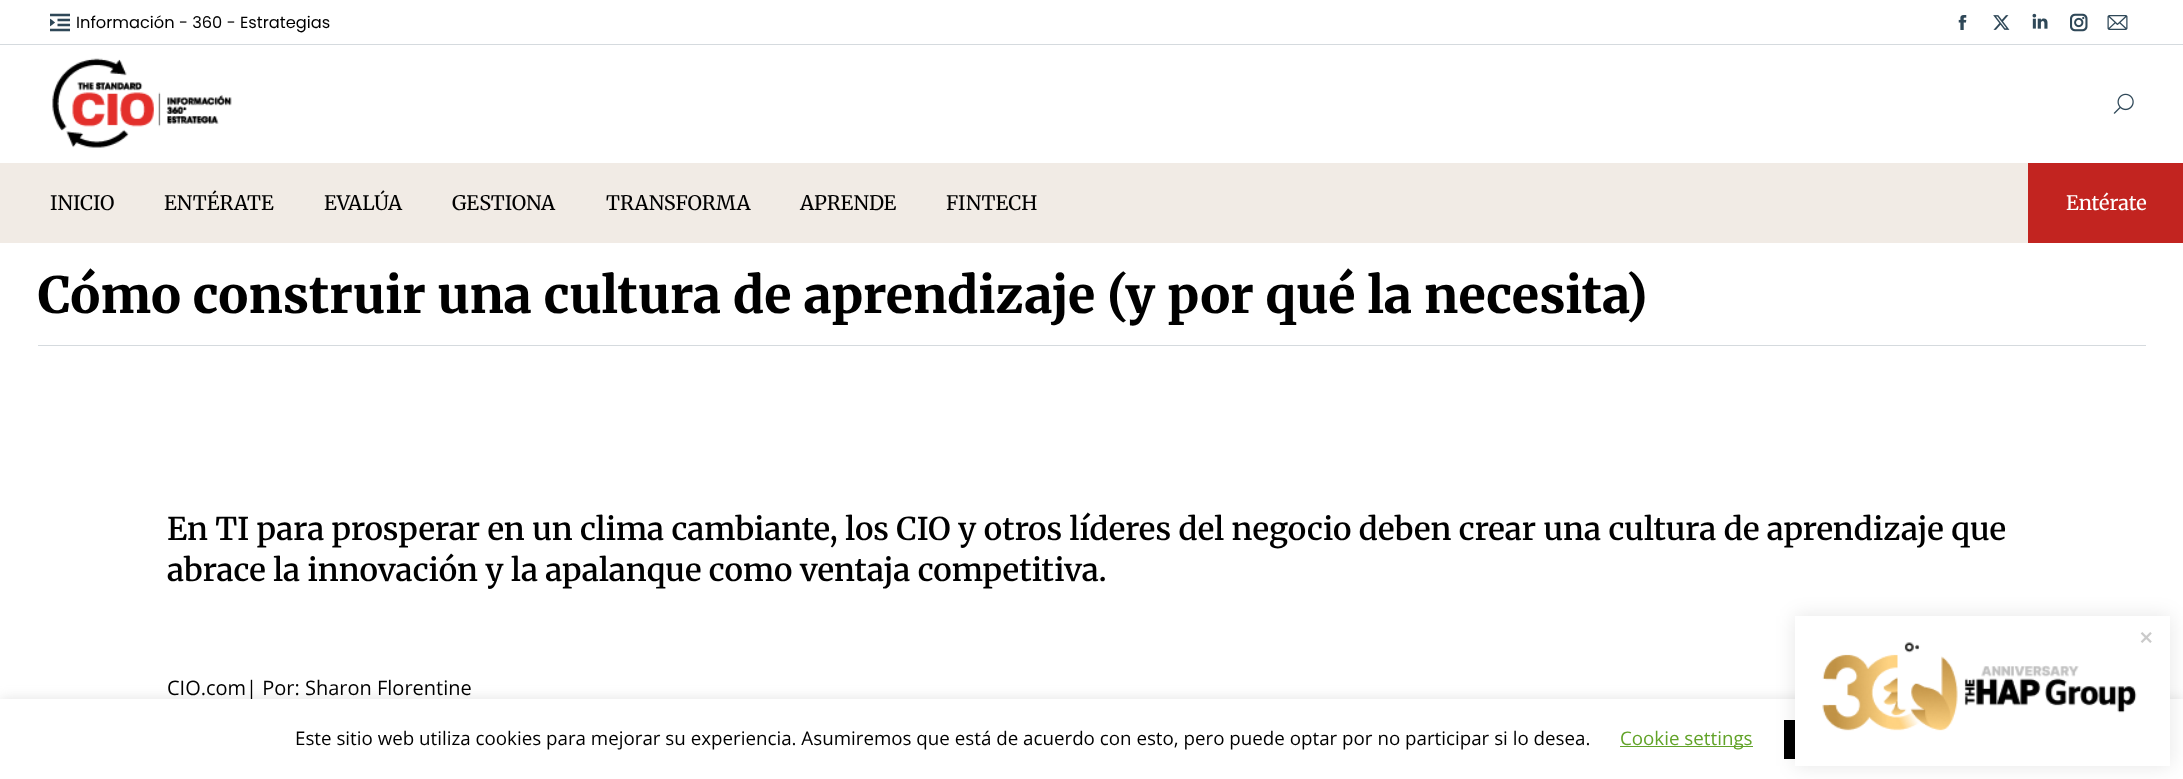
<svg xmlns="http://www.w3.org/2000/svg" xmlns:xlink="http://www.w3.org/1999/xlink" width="2183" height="779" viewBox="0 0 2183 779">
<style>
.cls-1{font:16.25px Poppins;fill:#000000}
.cls-2{font:20px Merriweather;fill:#000000}
.cls-3{font:20px Merriweather;fill:#ffffff}
.cls-4{font:800 50px Merriweather;fill:#000000}
.cls-5{font:600 31.25px Merriweather;fill:#000000}
.cls-6{font:20px Open Sans;fill:#000000}
.cls-7{font:18.75px Open Sans;fill:#000000}
.cls-8{font:18.75px Open Sans;fill:#62a329}
</style>
<rect width="100%" height="100%" fill="#ffffff"/>
<image xlink:href="image0.png" x="50" y="13" width="20" height="19"/>
<image xlink:href="image1.png" x="1958" y="15" width="9" height="15"/>
<image xlink:href="image2.png" x="1993" y="15" width="17" height="15"/>
<image xlink:href="image3.png" x="2032" y="13" width="16" height="16"/>
<image xlink:href="image4.png" x="2070" y="13" width="18" height="19"/>
<image xlink:href="image5.png" x="2107" y="15" width="21" height="15"/>
<rect fill="#d5dade" x="0" y="44" width="2183" height="1"/>
<image xlink:href="image6.png" x="52" y="58" width="180" height="90"/>
<image xlink:href="image7.png" x="2113" y="93" width="21" height="21"/>
<rect fill="#f1ebe5" x="0" y="163" width="2028" height="80"/>
<rect fill="#c22420" x="2028" y="163" width="155" height="80"/>
<rect fill="#d5dade" x="38" y="345" width="2108" height="1"/>
<rect fill="#acabab" fill-opacity="0.3" filter="blur(6px)" x="0" y="698" width="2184" height="81"/>
<text class="cls-1" x="76" y="28">Información - 360 - Estrategias</text>
<text class="cls-2" x="50" y="210">INICIO</text>
<text class="cls-2" x="164" y="210">ENTÉRATE</text>
<text class="cls-2" x="324" y="210">EVALÚA</text>
<text class="cls-2" x="452" y="210">GESTIONA</text>
<text class="cls-2" x="606" y="210">TRANSFORMA</text>
<text class="cls-2" x="800" y="210">APRENDE</text>
<text class="cls-2" x="946" y="210">FINTECH</text>
<text class="cls-3" x="2066" y="210">Entérate</text>
<text class="cls-4" x="38" y="313">Cómo construir una cultura de aprendizaje (y por qué la necesita)</text>
<text class="cls-5"><tspan x="167" y="540">En TI para prosperar en un clima cambiante, los CIO y otros líderes del negocio deben crear una cultura de aprendizaje que</tspan><tspan x="167" y="581">abrace la innovación y la apalanque como ventaja competitiva.</tspan></text>
<text class="cls-6" x="167" y="695">CIO.com| Por: Sharon Florentine</text>
<rect fill="#ffffff" x="0" y="699" width="2183" height="80"/>
<text class="cls-7" x="295" y="745">Este sitio web utiliza cookies para mejorar su experiencia. Asumiremos que está de acuerdo con esto, pero puede optar por no participar si lo desea.</text>
<rect fill="#62a329" x="1620" y="746" width="133" height="1"/>
<text class="cls-8" x="1620" y="745">Cookie settings</text>
<rect fill="#000000" x="1784" y="720" width="11" height="39"/>
<rect fill="#000000" fill-opacity="0.1" filter="blur(10px)" x="1795" y="616" width="375" height="150"/>
<rect fill="#ffffff" x="1795" y="616" width="375" height="150"/>
<image xlink:href="image8.png" x="1822" y="642" width="315" height="89"/>
<image xlink:href="image9.png" x="2140" y="632" width="12" height="11"/>
</svg>
